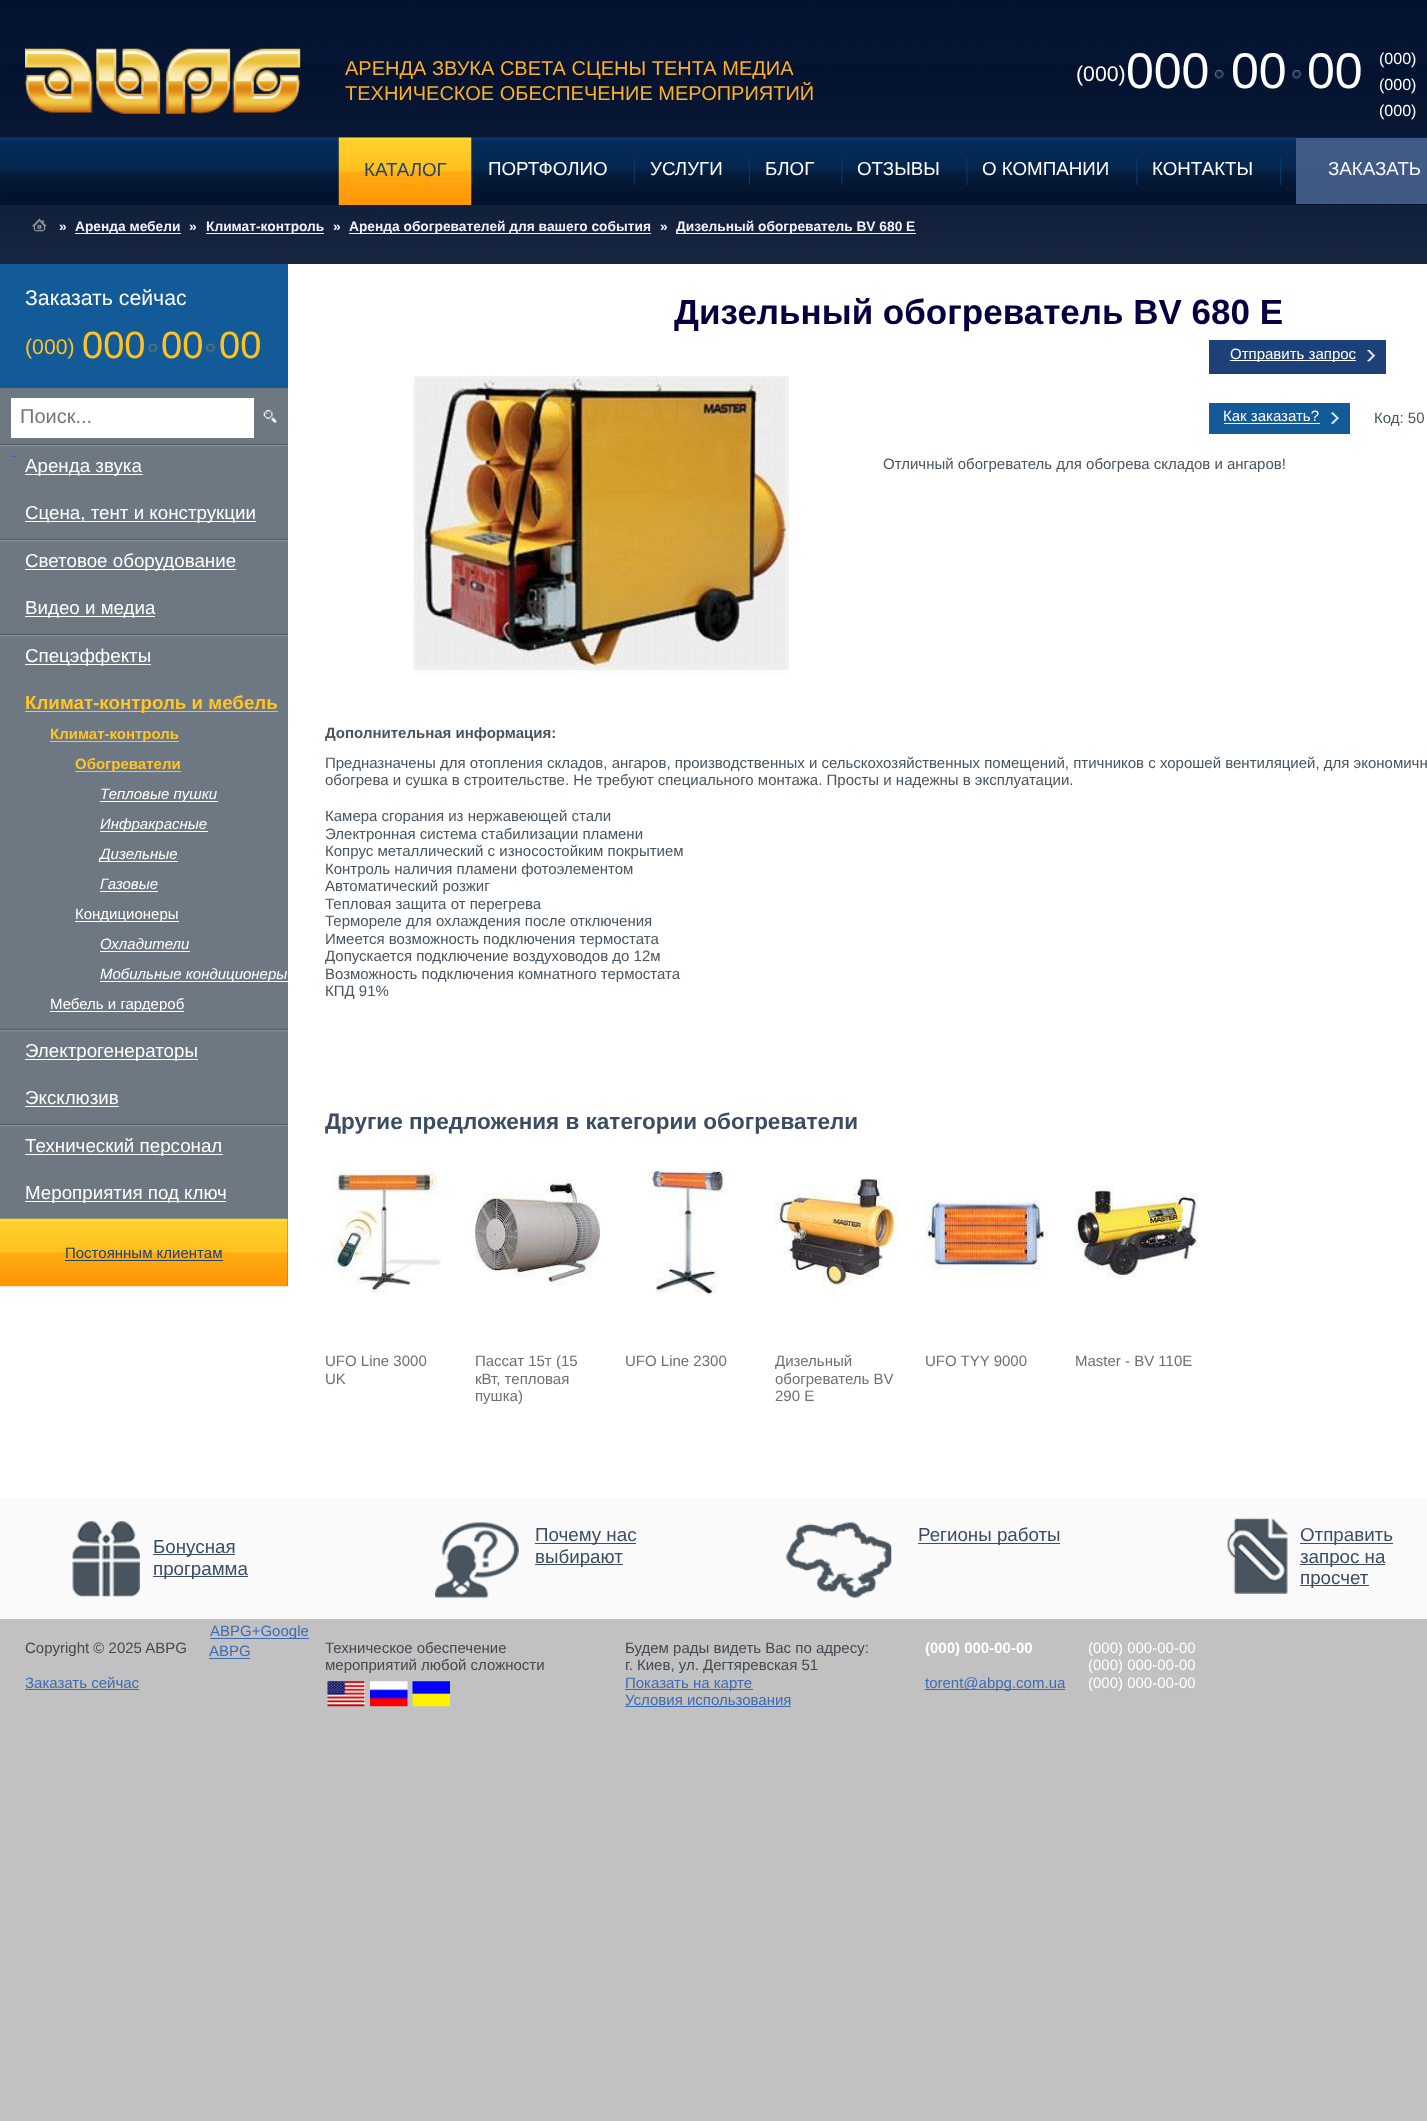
<svg xmlns="http://www.w3.org/2000/svg" xmlns:xlink="http://www.w3.org/1999/xlink" width="1427" height="2121" viewBox="0 0 1427 2121">
<style>
.cls-1{font:20px Liberation Sans;fill:#ffaf22}
.cls-2{font:21.25px Liberation Sans;fill:#ffffff}
.cls-3{font:50px Liberation Sans;fill:#ffffff}
.cls-4{font:16px Liberation Sans;fill:#ffffff}
.cls-5{font:18.75px Liberation Sans;fill:#214469}
.cls-6{font:18.75px Liberation Sans;fill:#ffffff}
.cls-7{font:18.75px Liberation Sans;fill:#f5f7f9}
.cls-8{font:bold 13.75px Liberation Sans;fill:#f4f2ff}
.cls-9{font:21.25px Liberation Sans;fill:#ffc220}
.cls-10{font:38px Liberation Sans;fill:#ffc220}
.cls-11{font:20px Liberation Sans;fill:#757575}
.cls-12{font:bold 18.75px Liberation Sans;fill:#ffc426}
.cls-13{font:bold 15px Liberation Sans;fill:#ffc426}
.cls-14{font:italic 15px Liberation Sans;fill:#ffffff}
.cls-15{font:15px Liberation Sans;fill:#ffffff}
.cls-16{font:15px Liberation Sans;fill:#214469}
.cls-17{font:bold 35px Liberation Sans;fill:#040040}
.cls-18{font:15px Liberation Sans;fill:#49555e}
.cls-19{font:bold 15px Liberation Sans;fill:#49555e}
.cls-20{font:bold 22.5px Liberation Sans;fill:#3c4d62}
.cls-21{font:15px Liberation Sans;fill:#6f6f6f}
.cls-22{font:18.75px Liberation Sans;fill:#3c4d62}
.cls-23{font:15px Liberation Sans;fill:#3c6bb6}
.cls-24{font:15px Liberation Sans;fill:#424951}
.cls-25{font:bold 15px Liberation Sans;fill:#ffffff}
</style>
<rect width="100%" height="100%" fill="#c1c1c1"/>
<image xlink:href="image0.png" x="0" y="0" width="1427" height="264"/>
<image xlink:href="image1.png" x="25" y="48" width="276" height="66"/>
<image xlink:href="image2.png" x="1215" y="70" width="9" height="9"/>
<image xlink:href="image3.png" x="1292" y="70" width="10" height="9"/>
<image xlink:href="image4.png" x="0" y="137" width="1427" height="68"/>
<image xlink:href="image5.png" x="471" y="157" width="2" height="28"/>
<image xlink:href="image6.png" x="338" y="137" width="134" height="68"/>
<image xlink:href="image7.png" x="633" y="157" width="2" height="28"/>
<image xlink:href="image7.png" x="748" y="157" width="2" height="28"/>
<image xlink:href="image5.png" x="841" y="157" width="2" height="28"/>
<image xlink:href="image5.png" x="966" y="157" width="2" height="28"/>
<image xlink:href="image5.png" x="1136" y="157" width="2" height="28"/>
<image xlink:href="image8.png" x="1280" y="157" width="2" height="28"/>
<rect fill="#435e88" fill-opacity="0.95" x="1296" y="138" width="131" height="66"/>
<image xlink:href="image9.png" x="32" y="218" width="15" height="14"/>
<rect fill="#f4f2ff" x="75" y="233" width="106" height="1"/>
<rect fill="#f4f2ff" x="206" y="233" width="118" height="1"/>
<rect fill="#f4f2ff" x="349" y="233" width="302" height="1"/>
<rect fill="#f4f2ff" x="676" y="233" width="240" height="1"/>
<rect fill="#ffffff" x="0" y="264" width="1427" height="1234"/>
<rect fill="#135a99" x="0" y="264" width="288" height="124"/>
<image xlink:href="image10.png" x="148" y="343" width="10" height="10"/>
<image xlink:href="image11.png" x="206" y="343" width="9" height="10"/>
<rect fill="#6e7882" x="0" y="388" width="288" height="898"/>
<image xlink:href="image12.png" x="263" y="410" width="14" height="13"/>
<rect fill="#ffffff" x="11" y="398" width="243" height="40"/>
<rect fill="#3c6bb6" x="11" y="456" width="5" height="1"/>
<image xlink:href="image13.png" x="0" y="443" width="288" height="4"/>
<rect fill="#ffffff" x="25" y="474" width="118" height="1"/>
<rect fill="#ffffff" x="25" y="521" width="231" height="1"/>
<image xlink:href="image13.png" x="0" y="538" width="288" height="4"/>
<rect fill="#ffffff" x="25" y="569" width="211" height="1"/>
<rect fill="#ffffff" x="25" y="616" width="130" height="1"/>
<image xlink:href="image13.png" x="0" y="633" width="288" height="4"/>
<rect fill="#ffffff" x="25" y="664" width="126" height="1"/>
<rect fill="#ffc426" x="25" y="711" width="253" height="1"/>
<rect fill="#ffc426" x="50" y="741" width="129" height="1"/>
<rect fill="#ffc426" x="75" y="771" width="106" height="1"/>
<rect fill="#ffffff" x="100" y="801" width="118" height="1"/>
<rect fill="#ffffff" x="100" y="831" width="108" height="1"/>
<rect fill="#ffffff" x="100" y="861" width="78" height="1"/>
<rect fill="#ffffff" x="100" y="891" width="58" height="1"/>
<rect fill="#ffffff" x="75" y="921" width="104" height="1"/>
<rect fill="#ffffff" x="100" y="951" width="90" height="1"/>
<rect fill="#ffffff" x="100" y="981" width="188" height="1"/>
<rect fill="#ffffff" x="50" y="1011" width="134" height="1"/>
<image xlink:href="image13.png" x="0" y="1028" width="288" height="4"/>
<rect fill="#ffffff" x="25" y="1059" width="173" height="1"/>
<rect fill="#ffffff" x="25" y="1106" width="94" height="1"/>
<image xlink:href="image13.png" x="0" y="1123" width="288" height="4"/>
<rect fill="#ffffff" x="25" y="1154" width="198" height="1"/>
<rect fill="#ffffff" x="25" y="1201" width="201" height="1"/>
<image xlink:href="image14.png" x="0" y="1218" width="288" height="69"/>
<rect fill="#214469" x="65" y="1260" width="158" height="1"/>
<image xlink:href="image15.png" x="413" y="376" width="376" height="301"/>
<rect fill="#1c4077" x="1209" y="340" width="177" height="34"/>
<image xlink:href="image16.png" x="1367" y="350" width="9" height="12"/>
<rect fill="#ffffff" x="1230" y="360" width="126" height="1"/>
<rect fill="#135a99" x="1209" y="403" width="141" height="31"/>
<image xlink:href="image17.png" x="1331" y="412" width="8" height="12"/>
<rect fill="#ffffff" x="1224" y="423" width="96" height="1"/>
<image xlink:href="image18.png" x="325" y="1170" width="123" height="123"/>
<image xlink:href="image19.png" x="475" y="1178" width="125" height="108"/>
<image xlink:href="image20.png" x="645" y="1170" width="80" height="125"/>
<image xlink:href="image21.png" x="775" y="1177" width="124" height="116"/>
<image xlink:href="image22.png" x="925" y="1200" width="123" height="78"/>
<image xlink:href="image23.png" x="1075" y="1185" width="123" height="93"/>
<rect fill="#fafafa" x="0" y="1498" width="1427" height="121"/>
<image xlink:href="image24.png" x="72" y="1521" width="68" height="76"/>
<rect fill="#3c4d62" x="153" y="1554" width="82" height="1"/>
<rect fill="#3c4d62" x="153" y="1576" width="95" height="1"/>
<image xlink:href="image25.png" x="435" y="1522" width="84" height="76"/>
<rect fill="#3c4d62" x="535" y="1543" width="101" height="1"/>
<rect fill="#3c4d62" x="535" y="1564" width="88" height="1"/>
<image xlink:href="image26.png" x="786" y="1522" width="106" height="76"/>
<rect fill="#3c4d62" x="918" y="1543" width="142" height="1"/>
<image xlink:href="image27.png" x="1227" y="1518" width="61" height="76"/>
<rect fill="#3c4d62" x="1300" y="1543" width="93" height="1"/>
<rect fill="#3c4d62" x="1300" y="1564" width="85" height="1"/>
<rect fill="#3c4d62" x="1300" y="1585" width="69" height="1"/>
<rect fill="#3c6bb6" x="210" y="1638" width="99" height="1"/>
<rect fill="#3c6bb6" x="25" y="1689" width="114" height="1"/>
<rect fill="#3c6bb6" x="209" y="1658" width="41" height="1"/>
<rect fill="#3c6bb6" x="625" y="1689" width="128" height="1"/>
<rect fill="#3c6bb6" x="625" y="1706" width="166" height="1"/>
<rect fill="#3c6bb6" x="925" y="1689" width="140" height="1"/>
<image xlink:href="image28.png" x="327" y="1681" width="38" height="26"/>
<image xlink:href="image29.png" x="370" y="1681" width="38" height="26"/>
<image xlink:href="image30.png" x="412" y="1681" width="38" height="26"/>
<text class="cls-1"><tspan x="345" y="75">АРЕНДА ЗВУКА СВЕТА СЦЕНЫ ТЕНТА МЕДИА</tspan><tspan x="345" y="100">ТЕХНИЧЕСКОЕ ОБЕСПЕЧЕНИЕ МЕРОПРИЯТИЙ</tspan></text>
<text class="cls-2" x="1076" y="81">(000)</text>
<text class="cls-3" x="1126" y="88">000</text>
<text class="cls-3" x="1231" y="88">00</text>
<text class="cls-3" x="1307" y="88">00</text>
<text class="cls-4"><tspan x="1379" y="64">(000)</tspan><tspan x="1379" y="90">(000)</tspan><tspan x="1379" y="116">(000)</tspan></text>
<text class="cls-5" x="364" y="176">КАТАЛОГ</text>
<text class="cls-6" x="488" y="175">ПОРТФОЛИО</text>
<text class="cls-6" x="650" y="175">УСЛУГИ</text>
<text class="cls-6" x="765" y="175">БЛОГ</text>
<text class="cls-6" x="857" y="175">ОТЗЫВЫ</text>
<text class="cls-6" x="982" y="175">О КОМПАНИИ</text>
<text class="cls-6" x="1152" y="175">КОНТАКТЫ</text>
<text class="cls-7" x="1328" y="175">ЗАКАЗАТЬ</text>
<text class="cls-8" x="59" y="231">»</text>
<text class="cls-8" x="75" y="231">Аренда мебели</text>
<text class="cls-8" x="189" y="231">»</text>
<text class="cls-8" x="206" y="231">Климат-контроль</text>
<text class="cls-8" x="333" y="231">»</text>
<text class="cls-8" x="349" y="231">Аренда обогревателей для вашего события</text>
<text class="cls-8" x="660" y="231">»</text>
<text class="cls-8" x="676" y="231">Дизельный обогреватель BV 680 E</text>
<text class="cls-2" x="25" y="305">Заказать сейчас</text>
<text class="cls-9" x="25" y="354">(000)</text>
<text class="cls-10" x="82" y="358">000</text>
<text class="cls-10" x="161" y="358">00</text>
<text class="cls-10" x="219" y="358">00</text>
<text class="cls-11" x="20" y="423">Поиск...</text>
<text class="cls-6" x="25" y="472">Аренда звука</text>
<text class="cls-6" x="25" y="519">Сцена, тент и конструкции</text>
<text class="cls-6" x="25" y="567">Световое оборудование</text>
<text class="cls-6" x="25" y="614">Видео и медиа</text>
<text class="cls-6" x="25" y="662">Спецэффекты</text>
<text class="cls-12" x="25" y="709">Климат-контроль и мебель</text>
<text class="cls-13" x="50" y="739">Климат-контроль</text>
<text class="cls-13" x="75" y="769">Обогреватели</text>
<text class="cls-14" x="100" y="799">Тепловые пушки</text>
<text class="cls-14" x="100" y="829">Инфракрасные</text>
<text class="cls-14" x="100" y="859">Дизельные</text>
<text class="cls-14" x="100" y="889">Газовые</text>
<text class="cls-15" x="75" y="919">Кондиционеры</text>
<text class="cls-14" x="100" y="949">Охладители</text>
<text class="cls-14" x="100" y="979">Мобильные кондиционеры</text>
<text class="cls-15" x="50" y="1009">Мебель и гардероб</text>
<text class="cls-6" x="25" y="1057">Электрогенераторы</text>
<text class="cls-6" x="25" y="1104">Эксклюзив</text>
<text class="cls-6" x="25" y="1152">Технический персонал</text>
<text class="cls-6" x="25" y="1199">Мероприятия под ключ</text>
<text class="cls-16" x="65" y="1258">Постоянным клиентам</text>
<text class="cls-17" x="674" y="324">Дизельный обогреватель BV 680 E</text>
<text class="cls-15" x="1230" y="359">Отправить запрос</text>
<text class="cls-15" x="1223" y="421">Как заказать?</text>
<text class="cls-18" x="1374" y="423">Код: 50</text>
<text class="cls-18" x="883" y="469">Отличный обогреватель для обогрева складов и ангаров!</text>
<text class="cls-19" x="325" y="738">Дополнительная информация:</text>
<text class="cls-18"><tspan x="325" y="768">Предназначены для отопления складов, ангаров, производственных и сельскохозяйственных помещений, птичников с хорошей вентиляцией, для экономичн</tspan><tspan x="325" y="785">обогрева и сушка в строительстве. Не требуют специального монтажа. Просты и надежны в эксплуатации.</tspan></text>
<text class="cls-18"><tspan x="325" y="821">Камера сгорания из нержавеющей стали</tspan><tspan x="325" y="839">Электронная система стабилизации пламени</tspan><tspan x="325" y="856">Копрус металлический с износостойким покрытием</tspan><tspan x="325" y="874">Контроль наличия пламени фотоэлементом</tspan><tspan x="325" y="891">Автоматический розжиг</tspan><tspan x="325" y="909">Тепловая защита от перегрева</tspan><tspan x="325" y="926">Термореле для охлаждения после отключения</tspan><tspan x="325" y="944">Имеется возможность подключения термостата</tspan><tspan x="325" y="961">Допускается подключение воздуховодов до 12м</tspan><tspan x="325" y="979">Возможность подключения комнатного термостата</tspan><tspan x="325" y="996">КПД 91%</tspan></text>
<text class="cls-20" x="325" y="1129">Другие предложения в категории обогреватели</text>
<text class="cls-21"><tspan x="325" y="1366">UFO Line 3000</tspan><tspan x="325" y="1384">UK</tspan></text>
<text class="cls-21"><tspan x="475" y="1366">Пассат 15т (15</tspan><tspan x="475" y="1384">кВт, тепловая</tspan><tspan x="475" y="1401">пушка)</tspan></text>
<text class="cls-21" x="625" y="1366">UFO Line 2300</text>
<text class="cls-21"><tspan x="775" y="1366">Дизельный</tspan><tspan x="775" y="1384">обогреватель BV</tspan><tspan x="775" y="1401">290 E</tspan></text>
<text class="cls-21" x="925" y="1366">UFO TYY 9000</text>
<text class="cls-21" x="1075" y="1366">Master - BV 110E</text>
<text class="cls-22"><tspan x="153" y="1553">Бонусная</tspan><tspan x="153" y="1575">программа</tspan></text>
<text class="cls-22"><tspan x="535" y="1541">Почему нас</tspan><tspan x="535" y="1563">выбирают</tspan></text>
<text class="cls-22" x="918" y="1541">Регионы работы</text>
<text class="cls-22"><tspan x="1300" y="1541">Отправить</tspan><tspan x="1300" y="1563">запрос на</tspan><tspan x="1300" y="1584">просчет</tspan></text>
<text class="cls-23" x="210" y="1636">ABPG+Google</text>
<text class="cls-24" x="25" y="1653">Copyright © 2025 ABPG</text>
<text class="cls-23" x="25" y="1688">Заказать сейчас</text>
<text class="cls-23" x="209" y="1656">ABPG</text>
<text class="cls-24"><tspan x="325" y="1653">Техническое обеспечение</tspan><tspan x="325" y="1670">мероприятий любой сложности</tspan></text>
<text class="cls-24"><tspan x="625" y="1653">Будем рады видеть Вас по адресу:</tspan><tspan x="625" y="1670">г. Киев, ул. Дегтяревская 51</tspan></text>
<text class="cls-23"><tspan x="625" y="1688">Показать на карте</tspan><tspan x="625" y="1705">Условия использования</tspan></text>
<text class="cls-25" x="925" y="1653">(000) 000-00-00</text>
<text class="cls-23" x="925" y="1688">torent@abpg.com.ua</text>
<text class="cls-15"><tspan x="1088" y="1653">(000) 000-00-00</tspan><tspan x="1088" y="1670">(000) 000-00-00</tspan><tspan x="1088" y="1688">(000) 000-00-00</tspan></text>
</svg>
